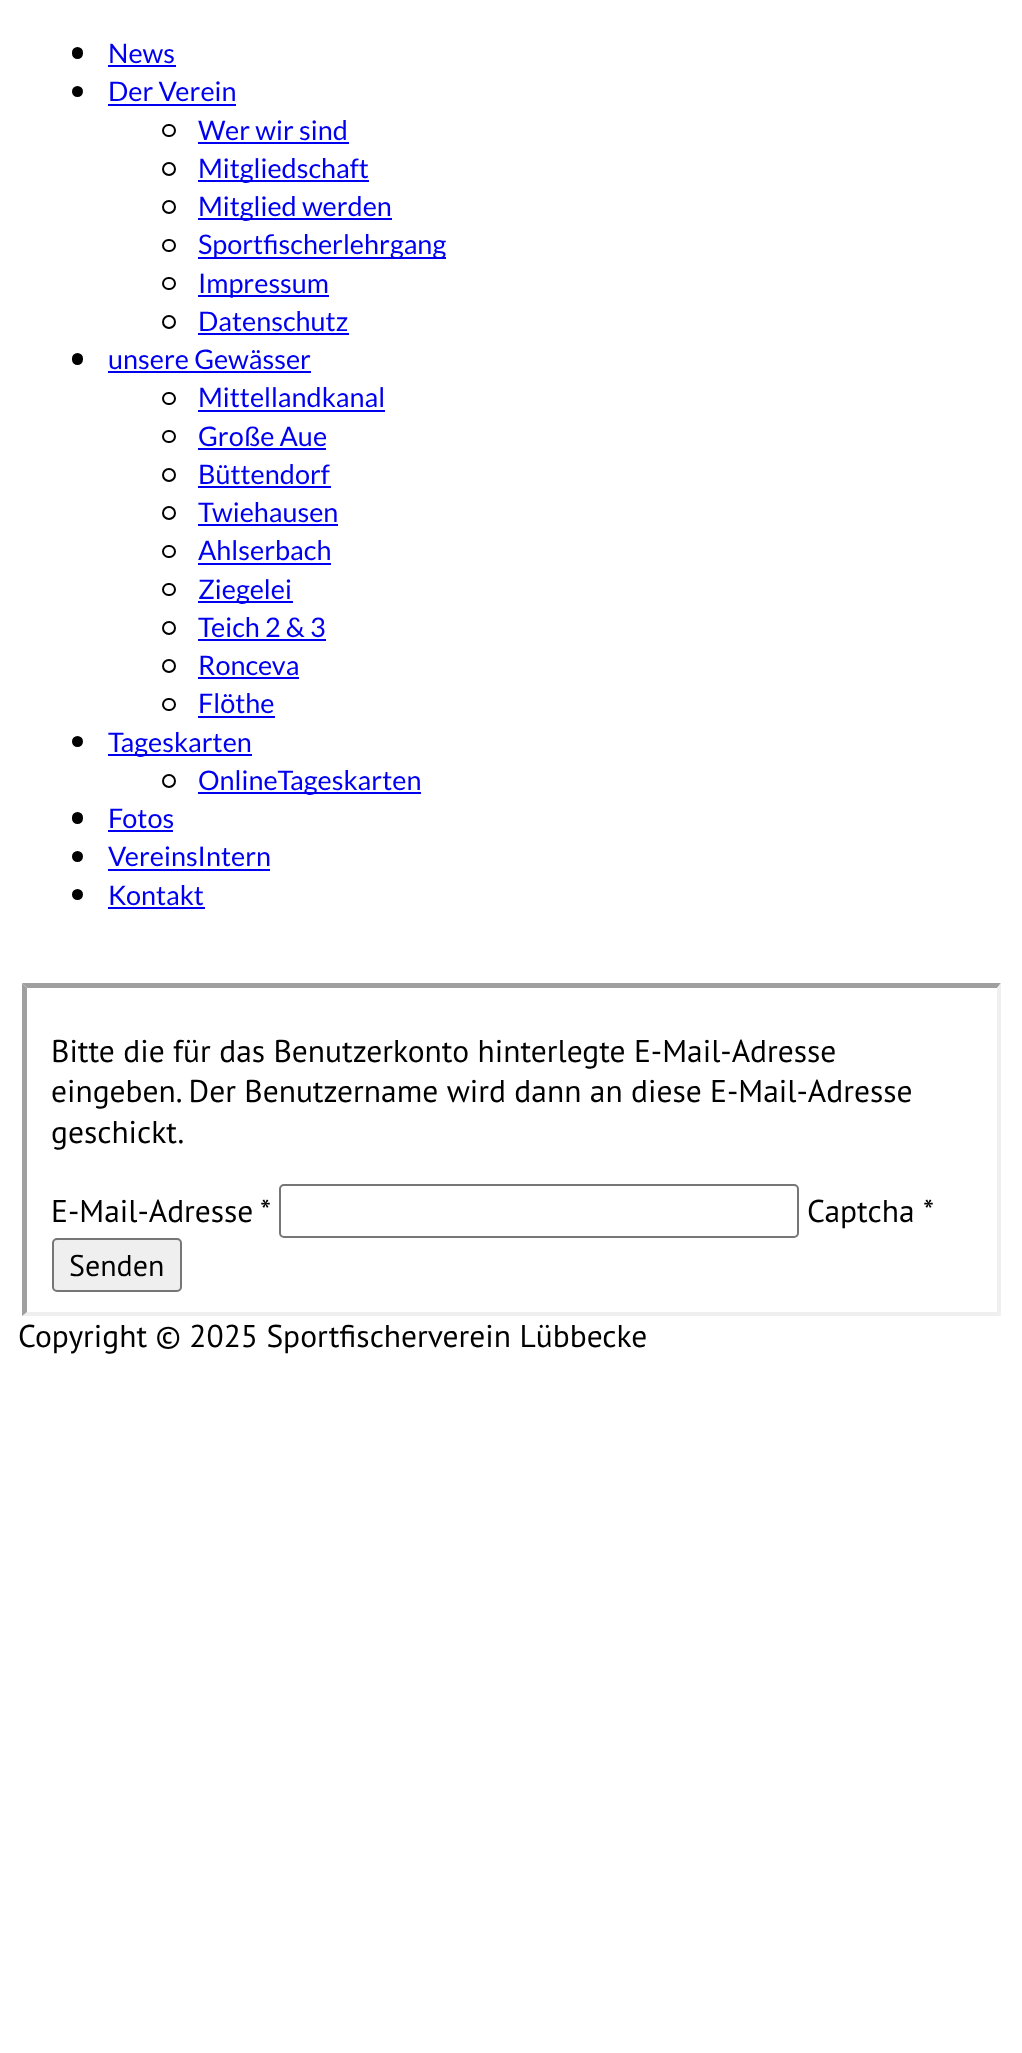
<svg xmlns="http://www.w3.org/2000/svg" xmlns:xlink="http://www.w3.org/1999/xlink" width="1022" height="2053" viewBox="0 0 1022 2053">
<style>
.cls-1{font:27px Lato;fill:#0000ee}
.cls-2{font:31.5px PT Sans;fill:#000000}
.cls-3{font:30px PT Sans;fill:#000000}
</style>
<rect width="100%" height="100%" fill="#ffffff"/>
<rect fill="#000000" x="72" y="47" width="11" height="12" rx="5.5"/>
<rect fill="#0000ee" x="108" y="65" width="68" height="2"/>
<circle fill="#000000" cx="77.5" cy="91.5" r="5.5"/>
<rect fill="#0000ee" x="108" y="104" width="128" height="2"/>
<rect fill="none" stroke="#000000" stroke-width="2" x="163" y="125" width="12" height="11" rx="5.5"/>
<rect fill="#0000ee" x="198" y="142" width="151" height="2"/>
<circle fill="none" stroke="#000000" stroke-width="2" cx="169" cy="169" r="6"/>
<rect fill="#0000ee" x="198" y="180" width="171" height="2"/>
<circle fill="none" stroke="#000000" stroke-width="2" cx="169" cy="207" r="6"/>
<rect fill="#0000ee" x="198" y="218" width="194" height="2"/>
<rect fill="none" stroke="#000000" stroke-width="2" x="163" y="240" width="12" height="11" rx="5.5"/>
<rect fill="#0000ee" x="198" y="257" width="248" height="2"/>
<rect fill="none" stroke="#000000" stroke-width="2" x="163" y="278" width="12" height="11" rx="5.5"/>
<rect fill="#0000ee" x="198" y="295" width="131" height="2"/>
<circle fill="none" stroke="#000000" stroke-width="2" cx="169" cy="322" r="6"/>
<rect fill="#0000ee" x="198" y="333" width="151" height="2"/>
<rect fill="#000000" x="72" y="353" width="11" height="12" rx="5.5"/>
<rect fill="#0000ee" x="108" y="371" width="203" height="2"/>
<rect fill="none" stroke="#000000" stroke-width="2" x="163" y="393" width="12" height="11" rx="5.5"/>
<rect fill="#0000ee" x="198" y="410" width="187" height="2"/>
<rect fill="none" stroke="#000000" stroke-width="2" x="163" y="431" width="12" height="11" rx="5.5"/>
<rect fill="#0000ee" x="198" y="448" width="128" height="2"/>
<circle fill="none" stroke="#000000" stroke-width="2" cx="169" cy="475" r="6"/>
<rect fill="#0000ee" x="198" y="486" width="133" height="2"/>
<circle fill="none" stroke="#000000" stroke-width="2" cx="169" cy="513" r="6"/>
<rect fill="#0000ee" x="198" y="524" width="140" height="2"/>
<rect fill="none" stroke="#000000" stroke-width="2" x="163" y="546" width="12" height="11" rx="5.5"/>
<rect fill="#0000ee" x="198" y="563" width="133" height="2"/>
<rect fill="none" stroke="#000000" stroke-width="2" x="163" y="584" width="12" height="11" rx="5.5"/>
<rect fill="#0000ee" x="198" y="601" width="95" height="2"/>
<circle fill="none" stroke="#000000" stroke-width="2" cx="169" cy="628" r="6"/>
<rect fill="#0000ee" x="198" y="639" width="128" height="2"/>
<circle fill="none" stroke="#000000" stroke-width="2" cx="169" cy="666" r="6"/>
<rect fill="#0000ee" x="198" y="677" width="101" height="2"/>
<rect fill="none" stroke="#000000" stroke-width="2" x="163" y="699" width="12" height="11" rx="5.5"/>
<rect fill="#0000ee" x="198" y="716" width="77" height="2"/>
<circle fill="#000000" cx="77.5" cy="741.5" r="5.5"/>
<rect fill="#0000ee" x="108" y="754" width="144" height="2"/>
<circle fill="none" stroke="#000000" stroke-width="2" cx="169" cy="781" r="6"/>
<rect fill="#0000ee" x="198" y="792" width="223" height="2"/>
<rect fill="#000000" x="72" y="812" width="11" height="12" rx="5.5"/>
<rect fill="#0000ee" x="108" y="830" width="65" height="2"/>
<circle fill="#000000" cx="77.5" cy="856.5" r="5.5"/>
<rect fill="#0000ee" x="108" y="869" width="162" height="2"/>
<circle fill="#000000" cx="77.5" cy="894.5" r="5.5"/>
<rect fill="#0000ee" x="108" y="907" width="97" height="2"/>
<path fill="#9f9f9f" d="M22 983H1001L997 988H27Z"/>
<path fill="#efefef" d="M1001 983V1316L997 1312V988Z"/>
<path fill="#efefef" d="M1001 1316H22L27 1312H997Z"/>
<path fill="#9f9f9f" d="M22 1316V983L27 988V1312Z"/>
<rect fill="none" stroke="#767676" stroke-width="2" x="280" y="1185" width="518" height="52" rx="4"/>
<rect fill="#efefef" stroke="#767676" stroke-width="2" x="53" y="1239" width="128" height="52" rx="4"/>
<text class="cls-1"><tspan x="108" y="63">News</tspan><tspan x="108" y="101">Der Verein</tspan></text>
<text class="cls-1"><tspan x="198" y="140">Wer wir sind</tspan><tspan x="198" y="178">Mitgliedschaft</tspan><tspan x="198" y="216">Mitglied werden</tspan><tspan x="198" y="254">Sportfischerlehrgang</tspan><tspan x="198" y="293">Impressum</tspan><tspan x="198" y="331">Datenschutz</tspan></text>
<text class="cls-1" x="108" y="369">unsere Gewässer</text>
<text class="cls-1"><tspan x="198" y="407">Mittellandkanal</tspan><tspan x="198" y="446">Große Aue</tspan><tspan x="198" y="484">Büttendorf</tspan><tspan x="198" y="522">Twiehausen</tspan><tspan x="198" y="560">Ahlserbach</tspan><tspan x="198" y="599">Ziegelei</tspan><tspan x="198" y="637">Teich 2 &amp; 3</tspan><tspan x="198" y="675">Ronceva</tspan><tspan x="198" y="713">Flöthe</tspan></text>
<text class="cls-1" x="108" y="752">Tageskarten</text>
<text class="cls-1" x="198" y="790">OnlineTageskarten</text>
<text class="cls-1"><tspan x="108" y="828">Fotos</tspan><tspan x="108" y="866">VereinsIntern</tspan><tspan x="108" y="905">Kontakt</tspan></text>
<text class="cls-2"><tspan x="51" y="1062">Bitte die für das Benutzerkonto hinterlegte E-Mail-Adresse</tspan><tspan x="51" y="1102">eingeben. Der Benutzername wird dann an diese E-Mail-Adresse</tspan><tspan x="51" y="1143">geschickt.</tspan></text>
<text class="cls-2" x="51" y="1222">E-Mail-Adresse</text>
<text class="cls-2" x="260" y="1222">*</text>
<text class="cls-2" x="807" y="1222">Captcha *</text>
<text class="cls-3" x="69" y="1276">Senden</text>
<text class="cls-2" x="18" y="1347">Copyright © 2025 Sportfischerverein Lübbecke</text>
</svg>
